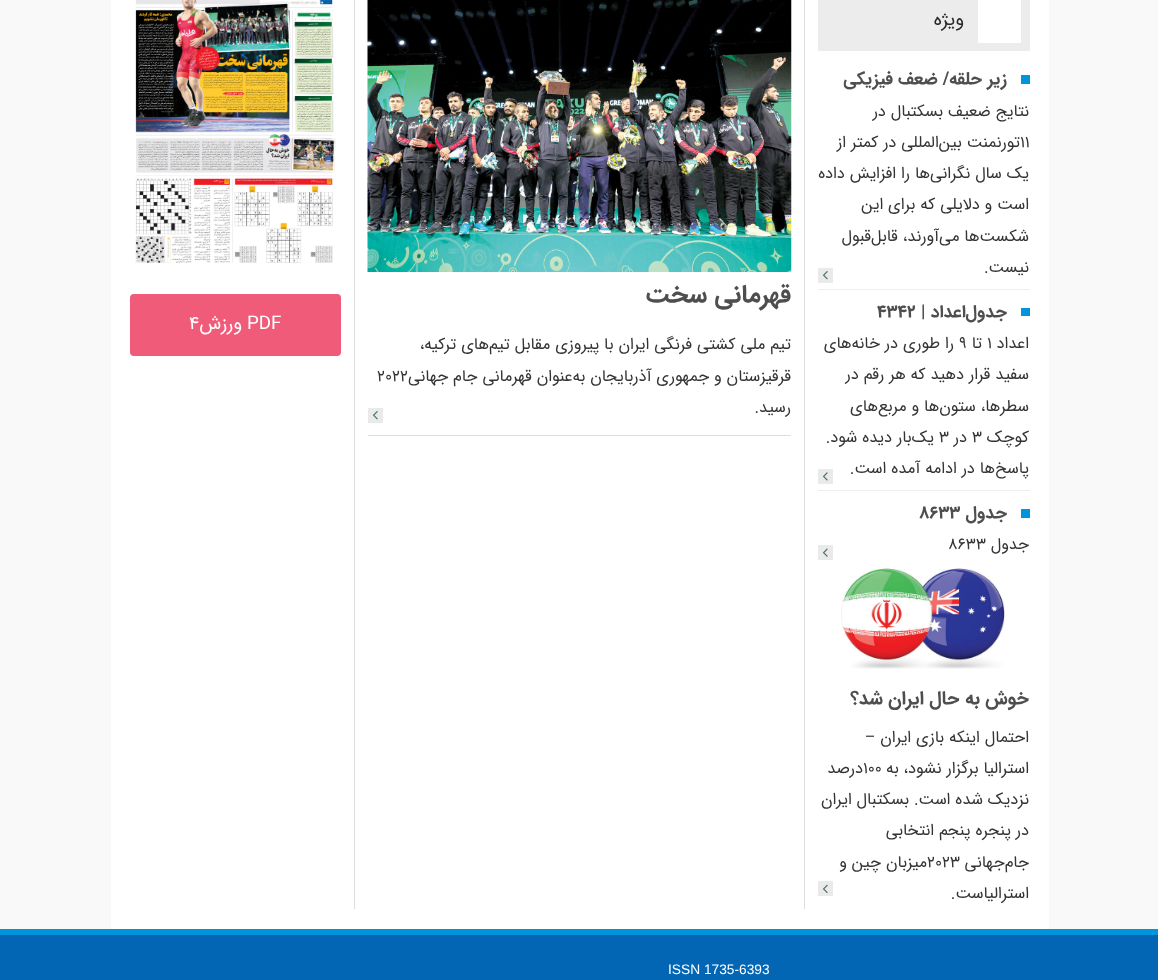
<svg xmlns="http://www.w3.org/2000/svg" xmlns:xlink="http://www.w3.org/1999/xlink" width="1158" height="980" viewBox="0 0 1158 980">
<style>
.cls-1{font:18.75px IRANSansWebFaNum;direction:rtl;fill:#292929}
.cls-2{font:bold 17.5px IRANSansWebFaNum;direction:rtl;fill:#4e4e4e}
.cls-3{font:16.25px IRANSansWebFaNum;direction:rtl;fill:#343434}
.cls-4{font:16.25px IRANSansWebFaNum;fill:#343434}
.cls-5{font:bold 17.5px IRANSansWebFaNum;fill:#4e4e4e}
.cls-6{font:bold 18.75px IRANSansWebFaNum;direction:rtl;fill:#4e4e4e}
.cls-7{font:bold 25px IRANSansWebFaNum;direction:rtl;fill:#4e4e4e}
.cls-8{font:18.75px IRANSansWebFaNum;fill:#ffffff}
.cls-9{font:18.75px IRANSansWebFaNum;direction:rtl;fill:#ffffff}
.cls-10{font:13.75px Liberation Sans;fill:#ffffff}
</style>
<rect width="100%" height="100%" fill="#f9f9f9"/>
<rect fill="#ffffff" x="111" y="0" width="938" height="929"/>
<rect fill="#dddddd" x="804" y="0" width="1" height="909"/>
<rect fill="#ececed" x="818" y="0" width="212" height="51"/>
<rect fill="#ffffff" x="978" y="0" width="43" height="43"/>
<rect fill="#eeeeee" x="818" y="289" width="212" height="1"/>
<rect fill="#0094dc" x="1021" y="75" width="9" height="9"/>
<rect fill="#eaeaea" x="818" y="268" width="15" height="15"/>
<image xlink:href="image0.png" x="822" y="271" width="6" height="9"/>
<rect fill="#eeeeee" x="818" y="490" width="212" height="1"/>
<rect fill="#0094dc" x="1021" y="308" width="9" height="8"/>
<rect fill="#eaeaea" x="818" y="469" width="15" height="15"/>
<image xlink:href="image1.png" x="822" y="472" width="6" height="9"/>
<rect fill="#0094dc" x="1021" y="509" width="9" height="9"/>
<rect fill="#eaeaea" x="818" y="545" width="15" height="15"/>
<image xlink:href="image2.png" x="822" y="548" width="6" height="9"/>
<image xlink:href="image3.png" x="841" y="567" width="164" height="102"/>
<rect fill="#eaeaea" x="818" y="881" width="15" height="15"/>
<image xlink:href="image4.png" x="823" y="884" width="5" height="9"/>
<rect fill="#dddddd" x="368" y="435" width="423" height="1"/>
<image xlink:href="image5.png" x="367" y="0" width="425" height="272"/>
<rect fill="#eaeaea" x="368" y="408" width="15" height="15"/>
<image xlink:href="image0.png" x="372" y="411" width="6" height="9"/>
<rect fill="#dddddd" x="354" y="0" width="1" height="909"/>
<image xlink:href="image6.png" x="135" y="0" width="201" height="263"/>
<rect fill="#f05b79" x="130" y="294" width="211" height="62" rx="4"/>
<rect fill="#0266b4" x="0" y="935" width="1158" height="45"/>
<rect fill="#0094dc" x="0" y="929" width="1158" height="6"/>
<text class="cls-1" x="964" y="25">ویژه</text>
<text class="cls-2" x="1007" y="84">زیر حلقه/ ضعف فیزیکی</text>
<text class="cls-3" x="1029" y="116">نتایج ضعیف بسکتبال در</text>
<text class="cls-4" x="1020" y="147">11</text>
<text class="cls-3" x="1020" y="147">تورنمنت بین‌المللی در کمتر از</text>
<text class="cls-3"><tspan x="1029" y="178">یک سال نگرانی‌ها را افزایش داده</tspan><tspan x="1029" y="209">است و دلایلی که برای این</tspan><tspan x="1029" y="241">شکست‌ها می‌آورند، قابل‌قبول</tspan><tspan x="1029" y="272">نیست.</tspan></text>
<text class="cls-2" x="1007" y="317">جدول‌اعداد |</text>
<text class="cls-5" x="877" y="317">4342</text>
<text class="cls-3" x="1029" y="348">اعداد</text>
<text class="cls-4" x="987" y="348">1</text>
<text class="cls-3" x="982" y="348">تا</text>
<text class="cls-4" x="959" y="348">9</text>
<text class="cls-3" x="954" y="348">را طوری در خانه‌های</text>
<text class="cls-3"><tspan x="1029" y="379">سفید قرار دهید که هر رقم در</tspan><tspan x="1029" y="411">سطرها، ستون‌ها و مربع‌های</tspan><tspan x="1029" y="442">کوچک</tspan></text>
<text class="cls-4" x="972" y="442">3</text>
<text class="cls-3" x="967" y="442">در</text>
<text class="cls-4" x="939" y="442">3</text>
<text class="cls-3" x="934" y="442">یک‌بار دیده شود.</text>
<text class="cls-3" x="1029" y="473">پاسخ‌ها در ادامه آمده است.</text>
<text class="cls-2" x="1007" y="518">جدول</text>
<text class="cls-5" x="919" y="518">8633</text>
<text class="cls-3" x="1029" y="549">جدول</text>
<text class="cls-4" x="948" y="549">8633</text>
<text class="cls-6" x="1029" y="704">خوش به حال ایران شد؟</text>
<text class="cls-3"><tspan x="1029" y="742">احتمال اینکه بازی ایران –</tspan><tspan x="1029" y="773">استرالیا برگزار نشود، به</tspan></text>
<text class="cls-4" x="863" y="773">100</text>
<text class="cls-3" x="863" y="773">درصد</text>
<text class="cls-3"><tspan x="1029" y="804">نزدیک شده است. بسکتبال ایران</tspan><tspan x="1029" y="835">در پنجره پنجم انتخابی</tspan><tspan x="1029" y="867">جام‌جهانی</tspan></text>
<text class="cls-4" x="927" y="867">2023</text>
<text class="cls-3" x="927" y="867">میزبان چین و</text>
<text class="cls-3" x="1029" y="898">استرالیاست.</text>
<text class="cls-7" x="791" y="302">قهرمانی سخت</text>
<text class="cls-3"><tspan x="791" y="349">تیم ملی کشتی فرنگی ایران با پیروزی مقابل تیم‌های ترکیه،</tspan><tspan x="791" y="381">قرقیزستان و جمهوری آذربایجان به‌عنوان قهرمانی جام جهانی</tspan></text>
<text class="cls-4" x="377" y="381">‌2022</text>
<text class="cls-3" x="791" y="412">رسید.</text>
<text class="cls-8" x="247" y="329">PDF</text>
<text class="cls-9" x="242" y="329">ورزش</text>
<text class="cls-8" x="189" y="329">4</text>
<text class="cls-10" x="668" y="974">ISSN 1735-6393</text>
</svg>
